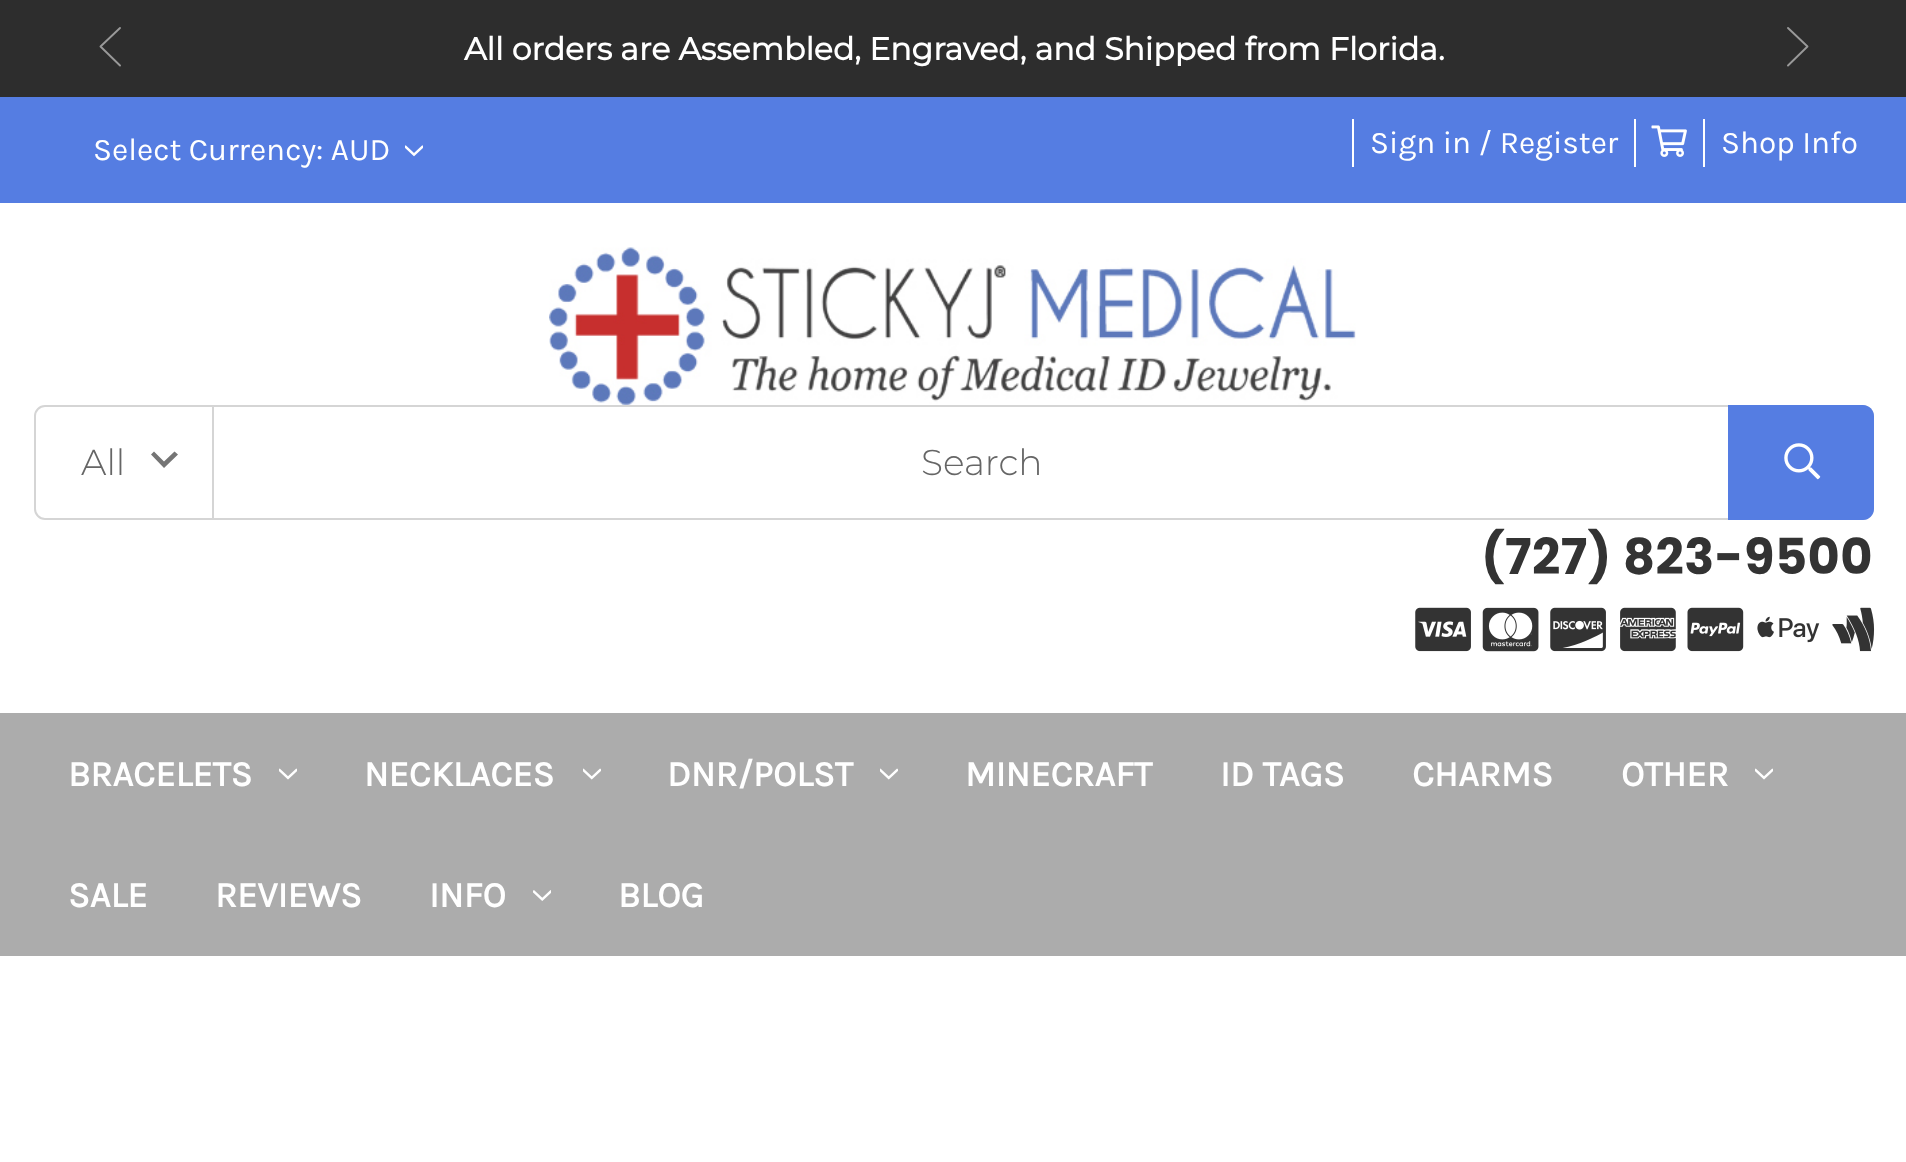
<svg xmlns="http://www.w3.org/2000/svg" xmlns:xlink="http://www.w3.org/1999/xlink" width="1906" height="1162" viewBox="0 0 1906 1162">
<style>
.cls-1{font:bold 31.5px Montserrat;fill:#ffffff}
.cls-2{font:31.5px Karla;fill:#ffffff}
.cls-3{font:300 36px Montserrat;fill:#666666}
.cls-4{font:bold 49.5px Poppins;letter-spacing:0.5px;fill:#333333}
.cls-5{font:bold 36px Karla;fill:#ffffff}
</style>
<rect width="100%" height="100%" fill="#ffffff"/>
<rect fill="#2d2d2d" x="0" y="0" width="1906" height="97"/>
<path fill="none" stroke="#999999" stroke-width="1.9" stroke-linecap="round" stroke-linejoin="round" d="M120 28L100.5 46.5L120 65.5"/>
<path fill="none" stroke="#999999" stroke-width="1.9" stroke-linecap="round" stroke-linejoin="round" d="M1788 28L1807.5 46.5L1788 65.5"/>
<rect fill="#557de2" x="0" y="97" width="1906" height="106"/>
<image xlink:href="image0.png" x="405" y="145" width="18" height="12"/>
<rect fill="#ffffff" x="1352" y="119" width="2" height="48"/>
<rect fill="#ffffff" x="1634" y="119" width="2" height="48"/>
<image xlink:href="image1.png" x="1651" y="125" width="36" height="32"/>
<rect fill="#ffffff" x="1703" y="119" width="2" height="48"/>
<image xlink:href="image2.png" x="549" y="247" width="807" height="158"/>
<path fill="#757575" d="M174.5 451.5L164 461.5L154 451.5L151 454.5L164 468L178 454.5Z"/>
<path fill="none" stroke="#d5d5d5" stroke-width="2" d="M45 406H213V519H45C39.5 519 35 514.5 35 509V416C35 410.5 39.5 406 45 406Z"/>
<path fill="#d5d5d5" fill-rule="evenodd" d="M214 405H1863C1869 405 1874 410 1874 416V508C1874 515 1869 520 1863 520H214ZM214 407H1863C1868 407 1872 411 1872 416V508C1872 513 1868 518 1863 518H214Z"/>
<path fill="#557de2" d="M1728 405H1863C1869 405 1874 410 1874 416V509C1874 515 1869 520 1863 520H1728Z"/>
<image xlink:href="image3.png" x="1784" y="443" width="37" height="37"/>
<image xlink:href="image4.png" x="1415" y="607" width="56" height="45"/>
<image xlink:href="image5.png" x="1482" y="607" width="57" height="45"/>
<image xlink:href="image6.png" x="1550" y="607" width="56" height="45"/>
<image xlink:href="image7.png" x="1620" y="607" width="56" height="45"/>
<image xlink:href="image8.png" x="1687" y="607" width="57" height="45"/>
<image xlink:href="image9.png" x="1757" y="616" width="63" height="27"/>
<image xlink:href="image10.png" x="1832" y="607" width="43" height="45"/>
<rect fill="#acacac" x="0" y="713" width="1906" height="243"/>
<image xlink:href="image11.png" x="279" y="768" width="18" height="12"/>
<image xlink:href="image12.png" x="583" y="768" width="18" height="12"/>
<image xlink:href="image12.png" x="880" y="768" width="18" height="12"/>
<image xlink:href="image11.png" x="1755" y="768" width="18" height="12"/>
<image xlink:href="image13.png" x="533" y="890" width="18" height="11"/>
<text class="cls-1" x="464" y="60">All orders are Assembled, Engraved, and Shipped from Florida.</text>
<text class="cls-2" x="93" y="160">Select Currency: AUD</text>
<text class="cls-2" x="1370" y="153">Sign in / Register</text>
<text class="cls-2" x="1721" y="153">Shop Info</text>
<text class="cls-3" x="81" y="475">All</text>
<text class="cls-3" x="921" y="475">Search</text>
<text class="cls-4" x="1481" y="574">(727) 823-9500</text>
<text class="cls-5" x="68" y="786">BRACELETS</text>
<text class="cls-5" x="364" y="786">NECKLACES</text>
<text class="cls-5" x="667" y="786">DNR/POLST</text>
<text class="cls-5" x="965" y="786">MINECRAFT</text>
<text class="cls-5" x="1220" y="786">ID TAGS</text>
<text class="cls-5" x="1412" y="786">CHARMS</text>
<text class="cls-5" x="1621" y="786">OTHER</text>
<text class="cls-5" x="68" y="907">SALE</text>
<text class="cls-5" x="215" y="907">REVIEWS</text>
<text class="cls-5" x="429" y="907">INFO</text>
<text class="cls-5" x="618" y="907">BLOG</text>
</svg>
